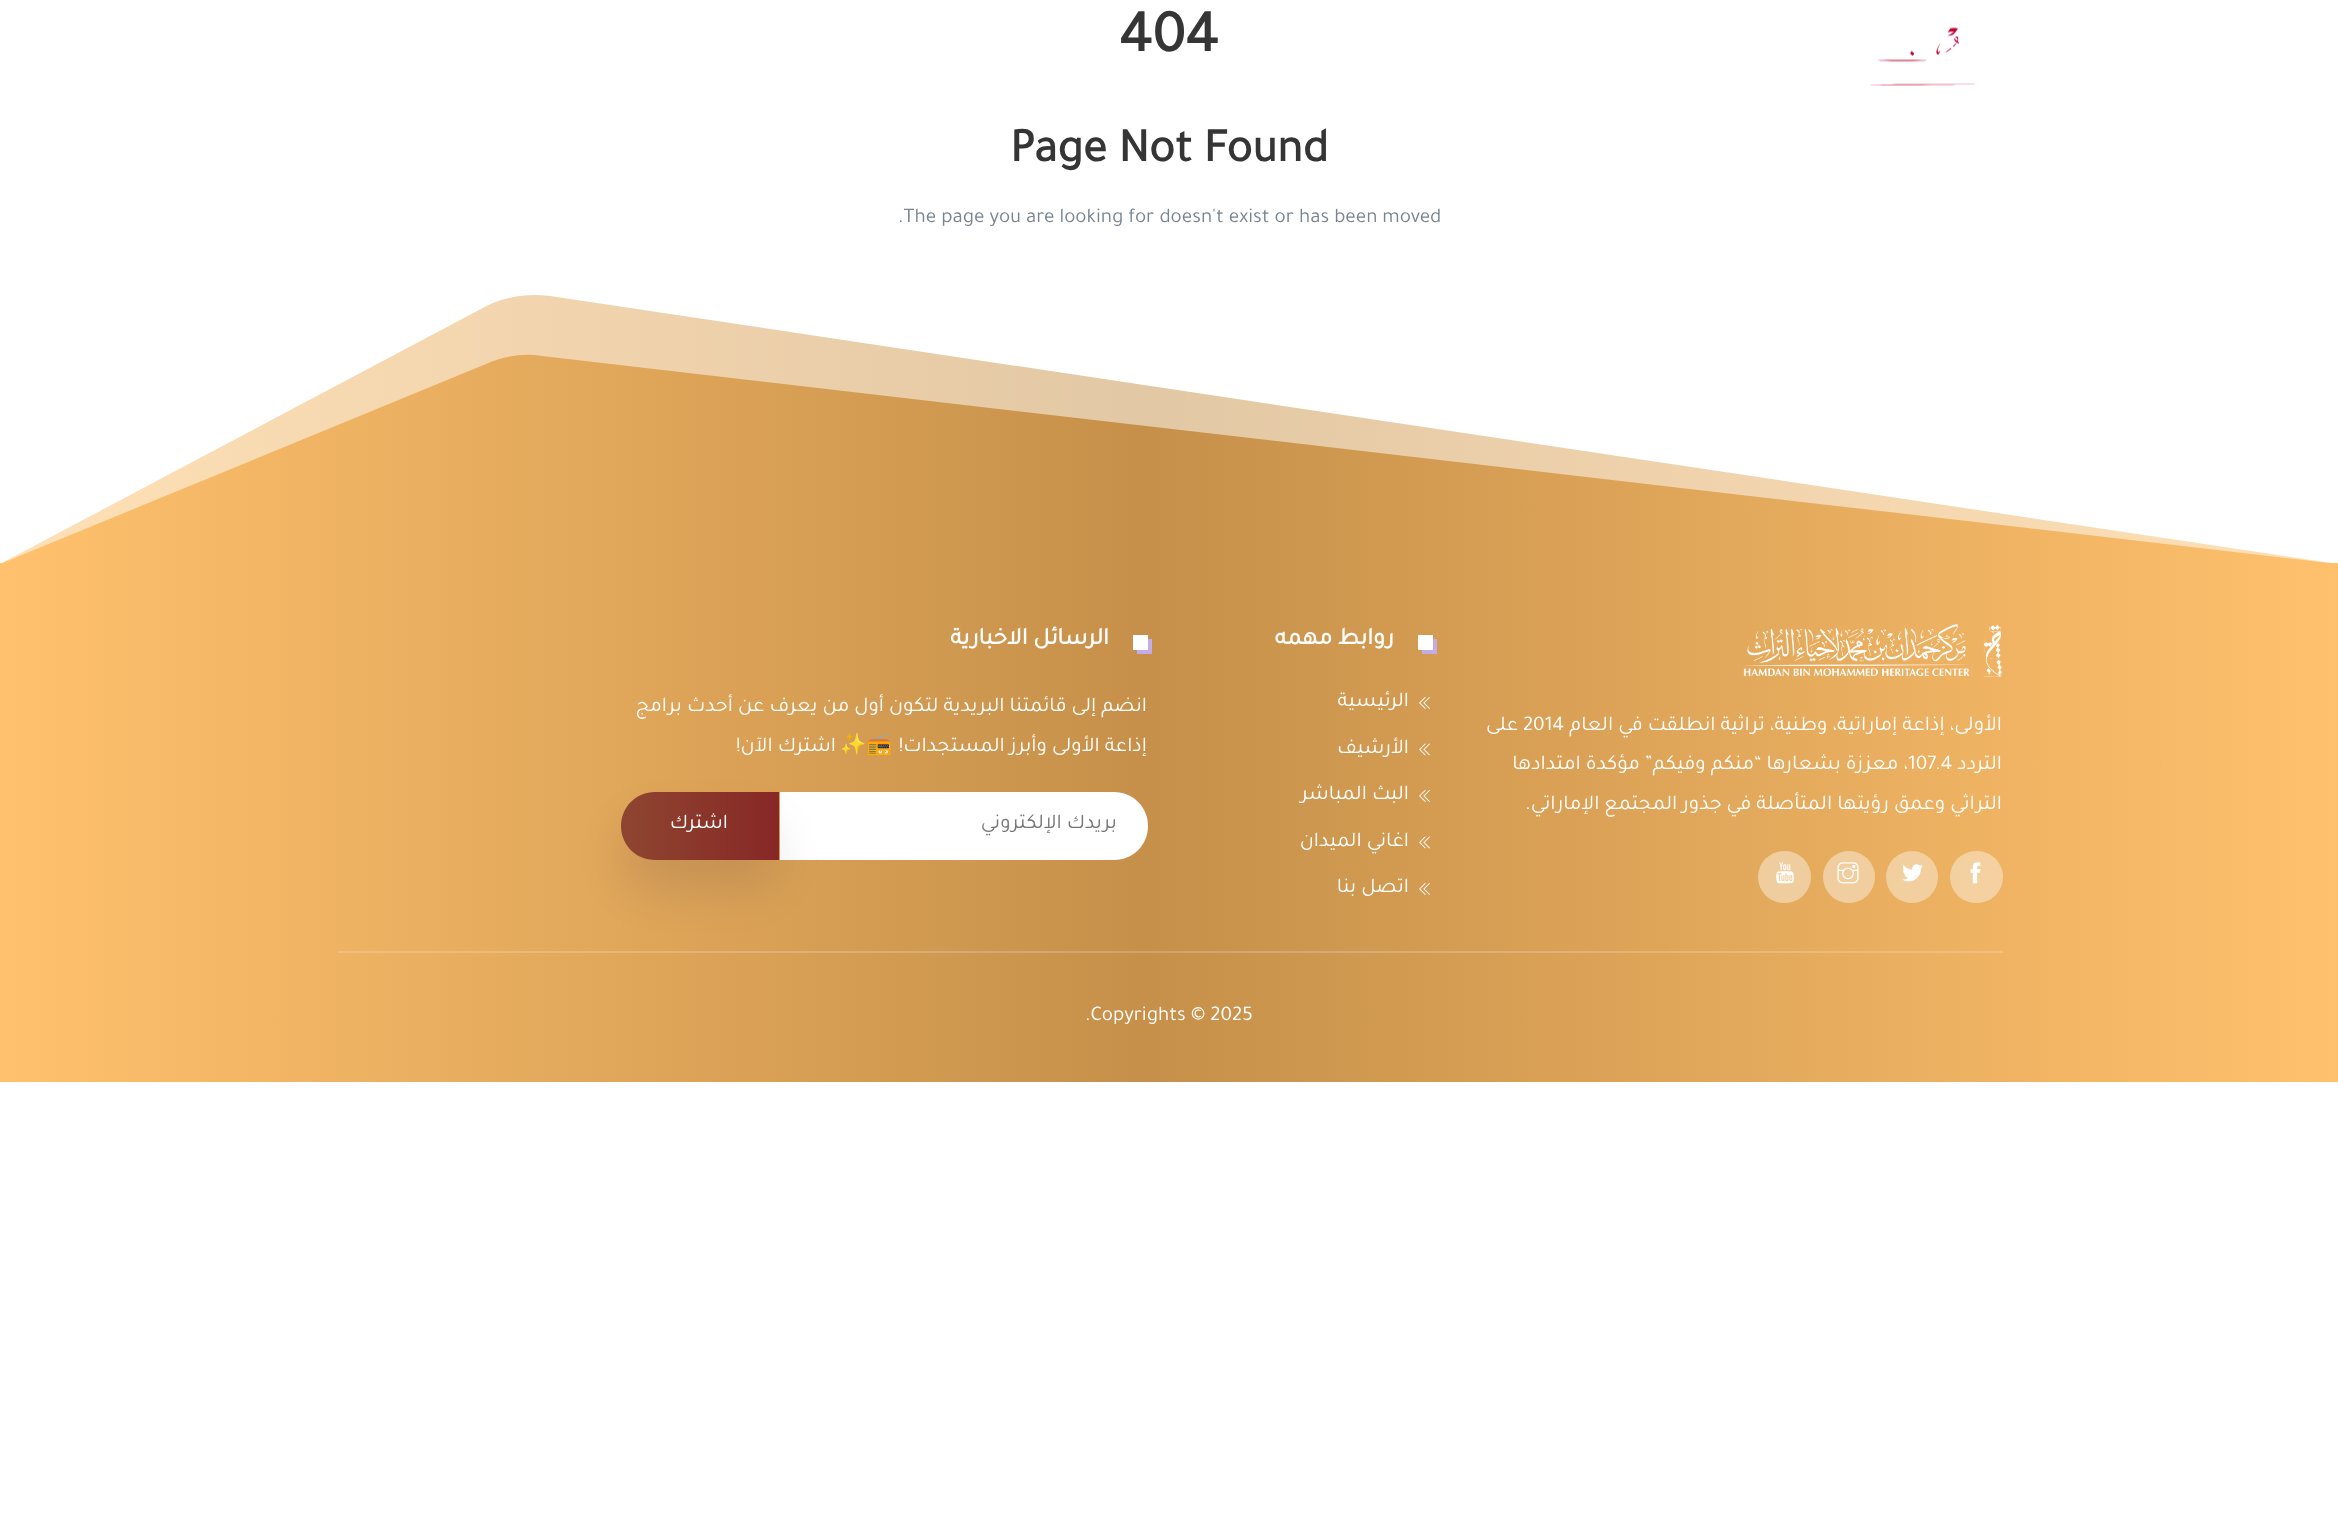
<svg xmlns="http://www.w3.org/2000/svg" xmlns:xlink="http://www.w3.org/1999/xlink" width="2338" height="1533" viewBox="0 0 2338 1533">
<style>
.cls-1{font:bold 60px Tajawal;fill:#353535}
.cls-2{font:bold 48px Tajawal;fill:#353535}
.cls-3{font:21px Tajawal;fill:#788490}
.cls-4{font:21px Tajawal;direction:rtl;fill:#ffffff}
.cls-5{font:21px Tajawal;fill:#ffffff}
.cls-6{font:bold 24px Tajawal;direction:rtl;fill:#ffffff}
.cls-7{font:21px Noto Color Emoji;direction:rtl;fill:#ffffff}
.cls-8{font:21px Tajawal;direction:rtl;fill:#767676}
</style>
<defs>
<linearGradient id="g1" gradientUnits="userSpaceOnUse" x1="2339" y1="688" x2="0" y2="688"><stop offset="0" stop-color="#ffc16d"/><stop offset="0.51" stop-color="#c6904a"/><stop offset="1" stop-color="#ffc16d"/></linearGradient>
<linearGradient id="g2" gradientUnits="userSpaceOnUse" x1="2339" y1="688" x2="0" y2="688"><stop offset="0" stop-color="#ffcc87"/><stop offset="0.51" stop-color="#cfa46b"/><stop offset="1" stop-color="#ffcc87"/></linearGradient>
<clipPath id="clip1"><rect x="0" y="293" width="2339" height="270"/></clipPath>
<clipPath id="clip2"><path d="M655 792H779V860H655C636 860 621 845 621 826C621 807 636 792 655 792Z"/></clipPath>
<linearGradient id="g3" gradientUnits="userSpaceOnUse" x1="314" y1="826" x2="623" y2="826"><stop offset="0" stop-color="#8e4530"/><stop offset="0.51" stop-color="#872726"/><stop offset="1" stop-color="#8e4530"/></linearGradient>
<linearGradient id="g4" gradientUnits="userSpaceOnUse" x1="623" y1="826" x2="932" y2="826"><stop offset="0" stop-color="#8e4530"/><stop offset="0.51" stop-color="#872726"/><stop offset="1" stop-color="#8e4530"/></linearGradient>
</defs>
<rect width="100%" height="100%" fill="#ffffff"/>
<image xlink:href="image0.png" x="1870" y="27" width="105" height="59"/>
<rect fill="url(#g1)" x="0" y="295" width="2338" height="787"/>
<rect fill="url(#g2)" x="338" y="951" width="1665" height="2"/>
<g clip-path="url(#clip1)">
<path fill="#ffffff" fill-opacity="0.5" d="M0 564L486 364C504 356 523 353 542 356L2338 564V258H0Z"/>
<path fill="#ffffff" d="M0 564L479 310C501 297 526 293 550 296L2338 564V258H0Z"/>
</g>
<image xlink:href="image1.png" x="1743" y="624" width="260" height="53"/>
<rect fill="#ffffff" fill-opacity="0.4" x="1950" y="851" width="53" height="52" rx="26"/>
<image xlink:href="image2.png" x="1970" y="862" width="11" height="22"/>
<circle fill="#ffffff" fill-opacity="0.4" cx="1912" cy="877" r="26"/>
<image xlink:href="image3.png" x="1902" y="864" width="21" height="18"/>
<circle fill="#f1ce9f" cx="1849" cy="877" r="26"/>
<image xlink:href="image4.png" x="1837" y="862" width="22" height="22"/>
<rect fill="#efcd9e" x="1758" y="851" width="53" height="52" rx="26"/>
<image xlink:href="image5.png" x="1776" y="862" width="18" height="22"/>
<path fill="#c5ace6" d="M1422 649.5V654H1437V639H1432.5V649.5Z"/>
<rect fill="#ffffff" x="1418" y="635" width="15" height="15"/>
<image xlink:href="image6.png" x="1419" y="697" width="11" height="12"/>
<image xlink:href="image7.png" x="1419" y="743" width="11" height="13"/>
<image xlink:href="image6.png" x="1419" y="790" width="11" height="12"/>
<image xlink:href="image7.png" x="1419" y="836" width="11" height="13"/>
<image xlink:href="image6.png" x="1419" y="883" width="11" height="12"/>
<path fill="#c5ace6" d="M1137 649.5V654H1152V639H1147.5V649.5Z"/>
<rect fill="#ffffff" x="1133" y="635" width="15" height="15"/>
<path fill="#ffffff" d="M780 792H1114C1133 792 1148 807 1148 826C1148 845 1133 860 1114 860H780Z"/>
<rect fill="#0e0330" fill-opacity="0.1" filter="blur(22.5px)" x="621" y="822" width="158" height="68" rx="34"/>
<g clip-path="url(#clip2)">
<rect fill="url(#g3)" x="621" y="814" width="2" height="24"/>
<rect fill="url(#g4)" x="623" y="792" width="156" height="68"/>
</g>
<text class="cls-1" x="1119" y="51">404</text>
<text class="cls-2" x="1010" y="161">Page Not Found</text>
<text class="cls-3" x="898" y="222">.The page you are looking for doesn't exist or has been moved</text>
<text class="cls-4" x="2002" y="730">الأولى، إذاعة إماراتية، وطنية، تراثية انطلقت في العام</text>
<text class="cls-5" x="1523" y="730">2014</text>
<text class="cls-4" x="1518" y="730">على</text>
<text class="cls-4" x="2002" y="769">التردد</text>
<text class="cls-5" x="1908" y="769">107.4</text>
<text class="cls-4" x="1908" y="769">، معززة بشعارها “منكم وفيكم” مؤكدة امتدادها</text>
<text class="cls-4" x="2002" y="809">التراثي وعمق رؤيتها المتأصلة في جذور المجتمع الإماراتي.</text>
<text class="cls-6" x="1394" y="644">روابط مهمه</text>
<text class="cls-4" x="1409" y="706">الرئيسية</text>
<text class="cls-4" x="1409" y="753">الأرشيف</text>
<text class="cls-4" x="1409" y="799">البث المباشر</text>
<text class="cls-4" x="1409" y="846">اغاني الميدان</text>
<text class="cls-4" x="1409" y="892">اتصل بنا</text>
<text class="cls-6" x="1109" y="644">الرسائل الاخبارية</text>
<text class="cls-4"><tspan x="1147" y="711">انضم إلى قائمتنا البريدية لتكون أول من يعرف عن أحدث برامج</tspan><tspan x="1147" y="751">إذاعة الأولى وأبرز المستجدات!</tspan></text>
<text class="cls-7" x="893" y="751">📻✨</text>
<text class="cls-4" x="836" y="751">اشترك الآن!</text>
<text class="cls-8" x="1117" y="828">بريدك الإلكتروني</text>
<text class="cls-4" x="728" y="828">اشترك</text>
<text class="cls-5" x="1085" y="1020">.Copyrights © 2025</text>
</svg>
